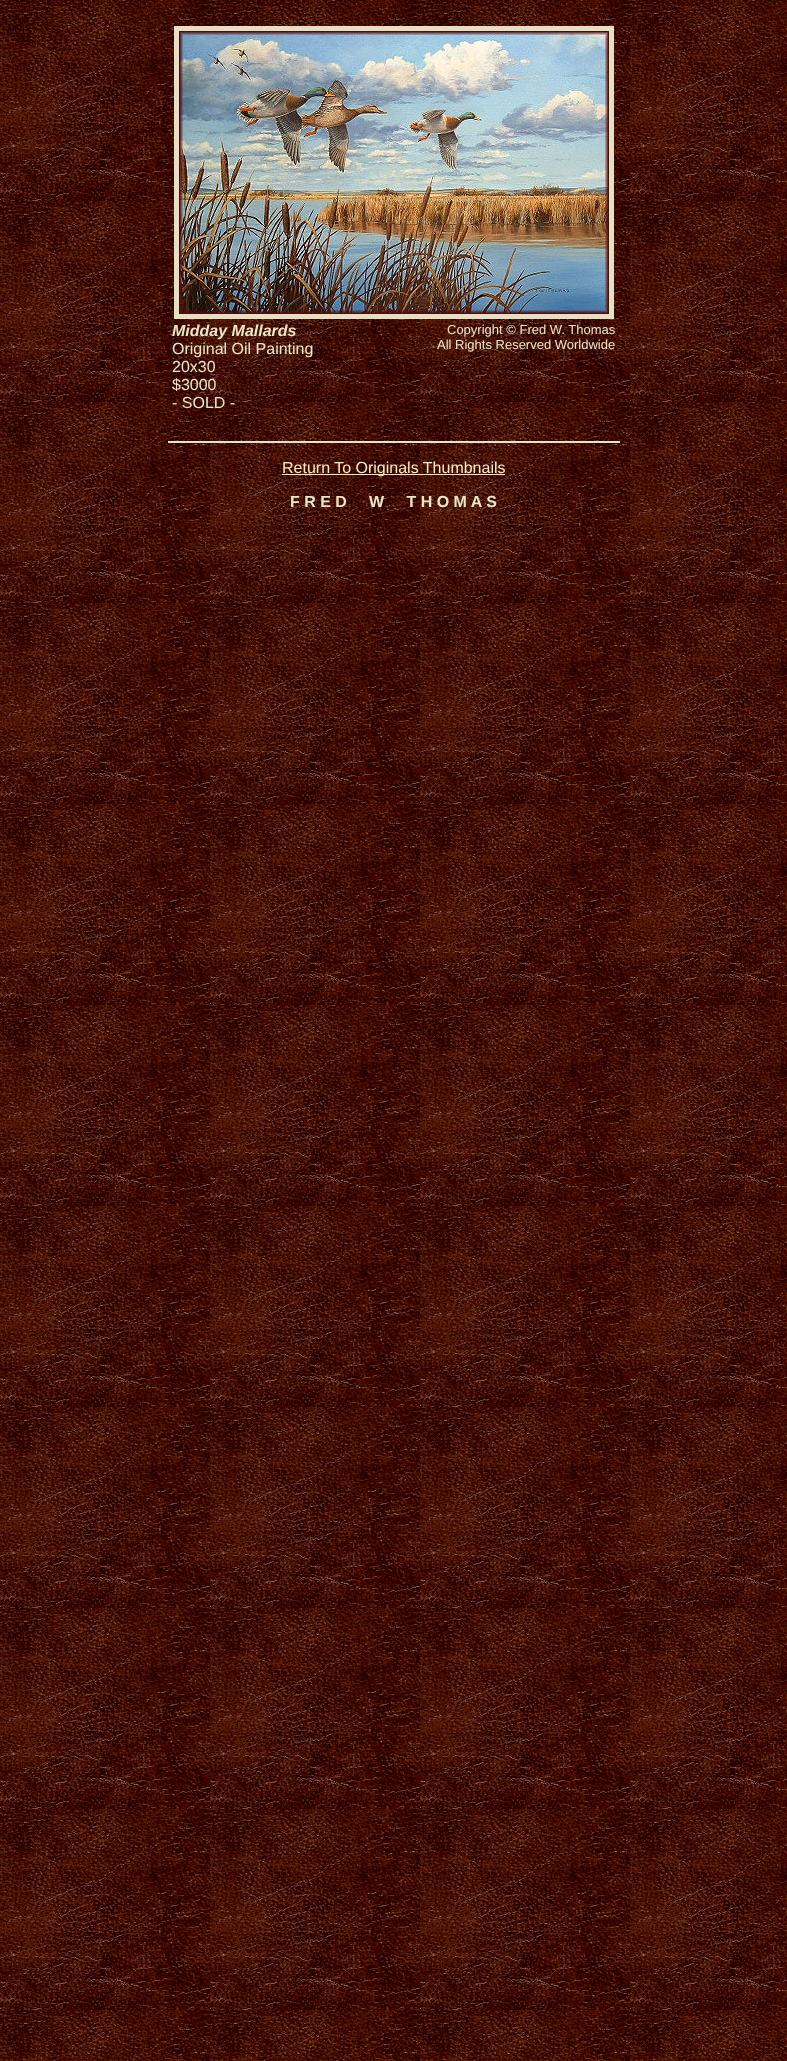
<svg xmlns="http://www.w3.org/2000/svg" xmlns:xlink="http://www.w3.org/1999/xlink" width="787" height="2061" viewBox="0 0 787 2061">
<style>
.cls-1{font:italic bold 16px Liberation Sans;fill:#e9e7c7}
.cls-2{font:16px Liberation Sans;fill:#e9e7c7}
.cls-3{font:13px Liberation Sans;fill:#e9e7c7}
.cls-4{font:16px Liberation Sans;fill:#f9ebc1}
.cls-5{font:bold 16px Liberation Sans;fill:#e9e7c7}
</style>
<rect width="100%" height="100%" fill="#ffffff"/>
<image xlink:href="image0.png" x="0" y="0" width="787" height="2061"/>
<image xlink:href="image1.png" x="174" y="26" width="440" height="293"/>
<rect fill="#e8e3c6" x="168" y="441" width="452" height="2"/>
<rect fill="#f9ebc1" x="282" y="474" width="223" height="1"/>
<text class="cls-1" x="172" y="336">Midday Mallards</text>
<text class="cls-2"><tspan x="172" y="354">Original Oil Painting</tspan><tspan x="172" y="372">20x30</tspan><tspan x="172" y="390">$3000</tspan><tspan x="172" y="408">- SOLD -</tspan></text>
<text class="cls-3" x="447" y="334">Copyright © Fred W. Thomas</text>
<text class="cls-3" x="437" y="349">All Rights Reserved Worldwide</text>
<text class="cls-4" x="282" y="473">Return To Originals Thumbnails</text>
<text class="cls-5" xml:space="preserve" x="290" y="507">F R E D     W     T H O M A S</text>
</svg>
